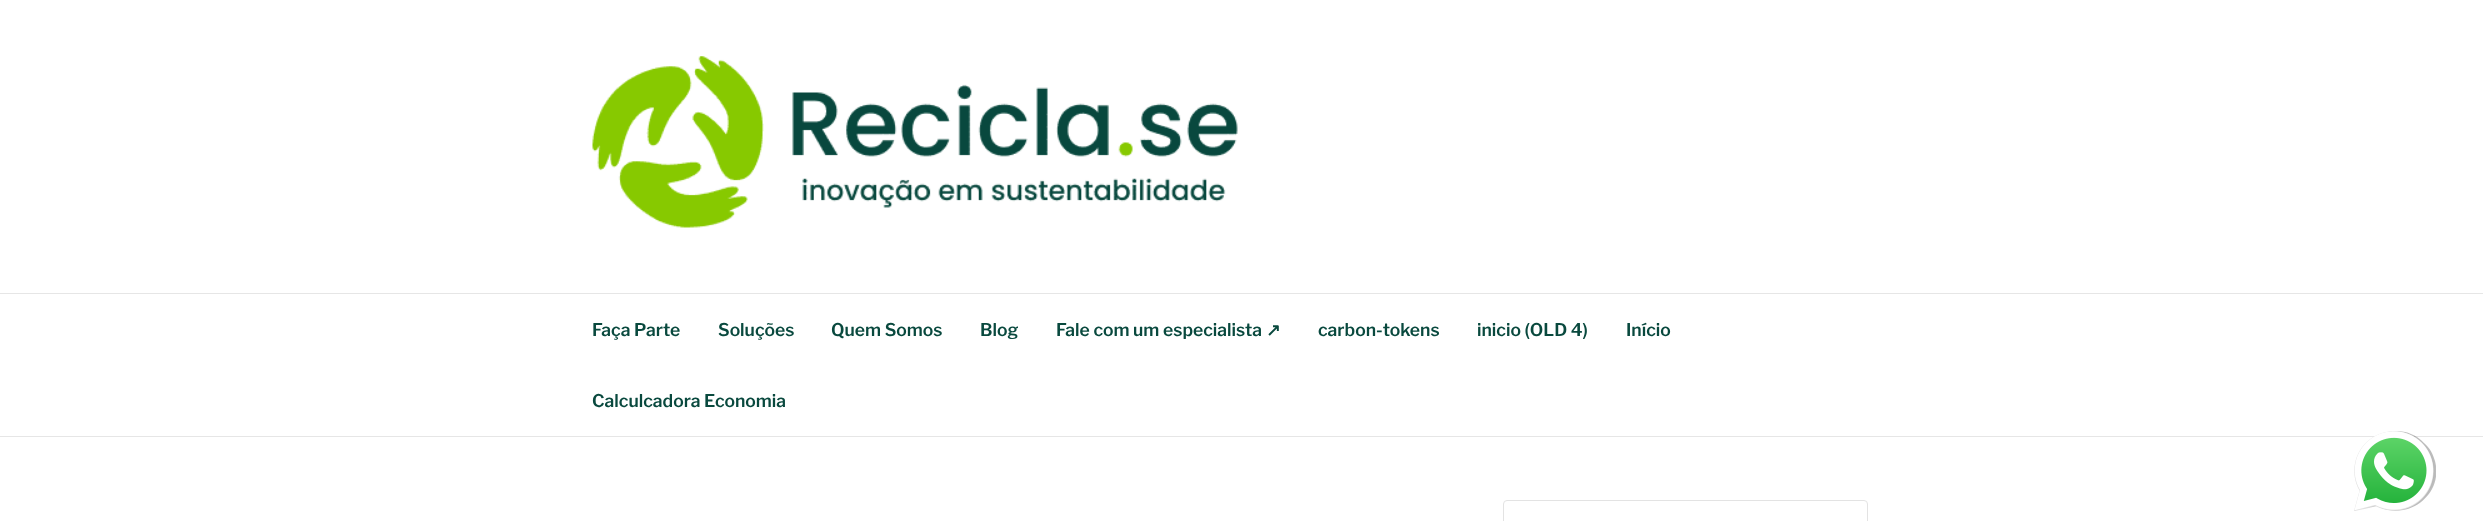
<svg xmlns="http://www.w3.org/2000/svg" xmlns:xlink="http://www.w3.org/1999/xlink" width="2483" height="521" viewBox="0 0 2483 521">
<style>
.cls-1{font:600 17.5px Libre Franklin;fill:#09493e}
.cls-2{font:bold 17.5px DejaVu Sans;fill:#09493e}
</style>
<defs>
<clipPath id="clip1"><rect x="2356" y="431" width="80" height="80"/></clipPath>
<radialGradient id="g1" gradientUnits="userSpaceOnUse" cx="2397" cy="471" r="57"><stop offset="0" stop-color="#323232"/><stop offset="1" stop-color="#323232" stop-opacity="0"/></radialGradient>
</defs>
<rect width="100%" height="100%" fill="#ffffff"/>
<image xlink:href="image0.png" x="592" y="56" width="646" height="172"/>
<rect fill="#e6e6e6" x="0" y="293" width="2483" height="1"/>
<rect fill="#e6e6e6" x="0" y="436" width="2483" height="1"/>
<rect fill="none" stroke="#e3e3e3" x="1503.5" y="500.5" width="364" height="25" rx="3.5"/>
<g clip-path="url(#clip1)">
<path fill="url(#g1)" d="M2424 443C2403 421 2366 431 2358 461C2355 471 2357 482 2362 491L2356 511L2377 506C2407 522 2444 495 2435 461C2433 454 2430 448 2424 443Z"/>
</g>
<image xlink:href="image1.png" x="2354" y="431" width="80" height="80"/>
<text class="cls-1" x="592" y="336">Faça Parte</text>
<text class="cls-1" x="718" y="336">Soluções</text>
<text class="cls-1" x="831" y="336">Quem Somos</text>
<text class="cls-1" x="980" y="336">Blog</text>
<text class="cls-1" x="1056" y="336">Fale com um especialista</text>
<text class="cls-2" x="1266" y="336">↗︎</text>
<text class="cls-1" x="1318" y="336">carbon-tokens</text>
<text class="cls-1" x="1477" y="336">inicio (OLD 4)</text>
<text class="cls-1" x="1626" y="336">Início</text>
<text class="cls-1" x="592" y="407">Calculcadora Economia</text>
</svg>
